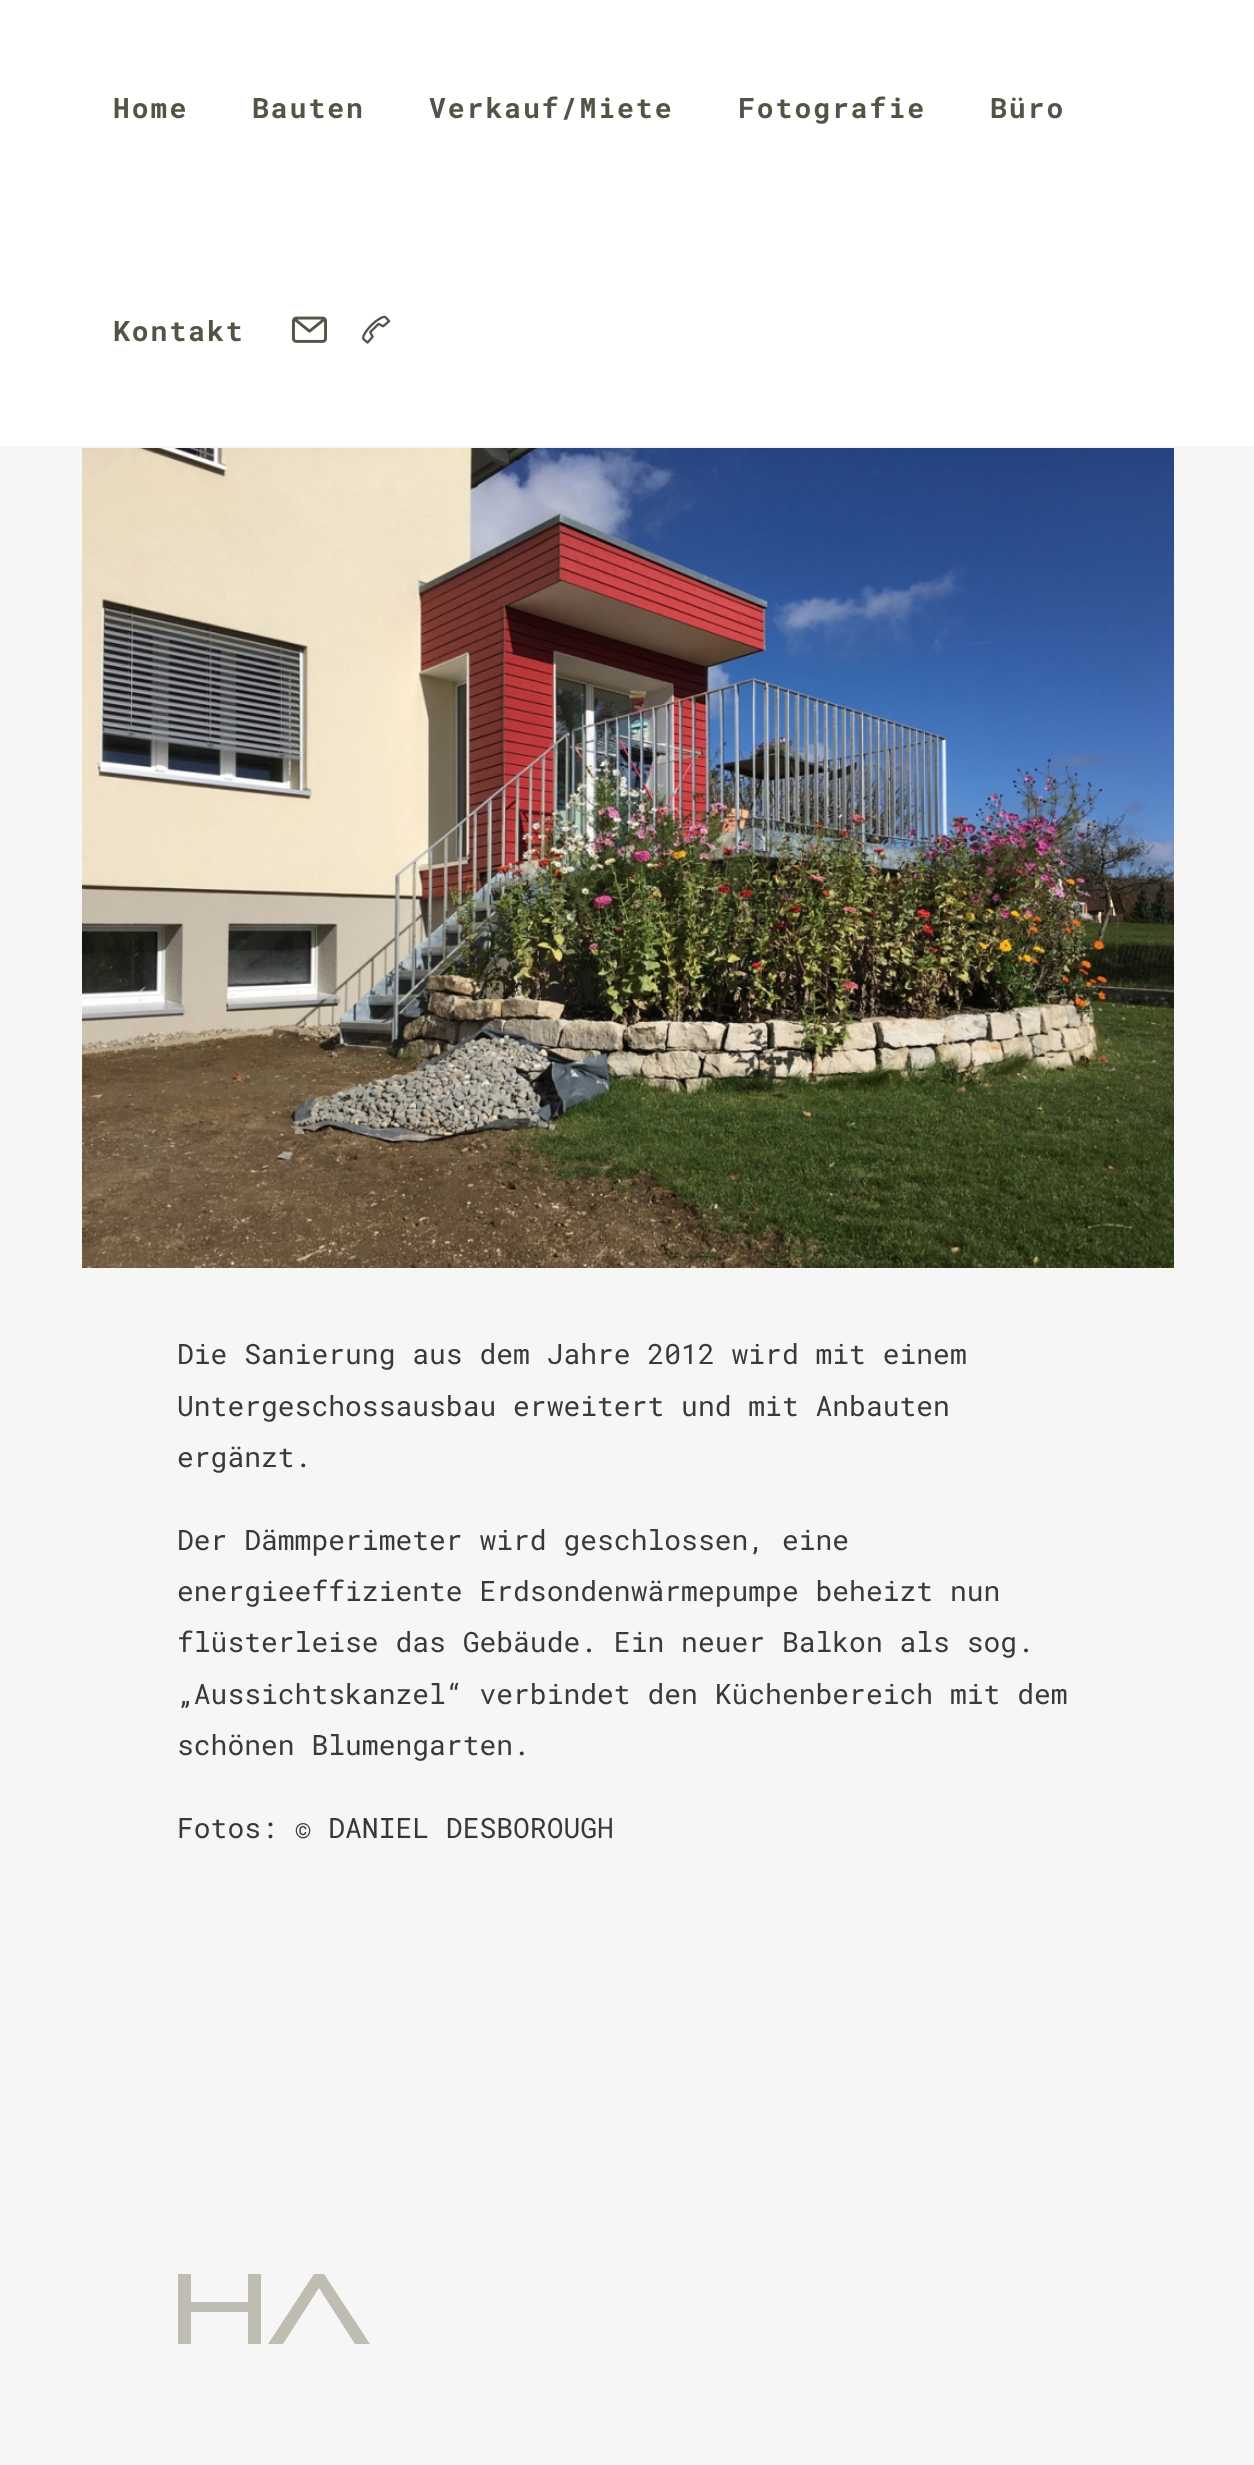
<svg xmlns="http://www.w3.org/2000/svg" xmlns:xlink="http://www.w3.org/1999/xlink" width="1254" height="2465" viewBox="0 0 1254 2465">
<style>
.cls-1{font:bold 28px Roboto Mono;letter-spacing:2px;fill:#545446}
.cls-2{font:28px Roboto Mono;fill:#373a3c}
</style>
<rect width="100%" height="100%" fill="#f6f6f6"/>
<rect fill="#ffffff" x="0" y="0" width="1254" height="446"/>
<image xlink:href="image0.png" x="292" y="316" width="35" height="27"/>
<image xlink:href="image1.png" x="362" y="315" width="29" height="29"/>
<image xlink:href="image2.png" x="82" y="448" width="1092" height="820"/>
<path fill="#bfbdb1" fill-rule="evenodd" d="M248 2344V2312H191V2344H178V2274H191V2302H248V2274H261V2344ZM355 2344L319 2288L283 2344H268L314 2274H324L370 2344Z"/>
<text class="cls-1" x="113" y="118">Home</text>
<text class="cls-1" x="252" y="118">Bauten</text>
<text class="cls-1" x="429" y="118">Verkauf/Miete</text>
<text class="cls-1" x="738" y="118">Fotografie</text>
<text class="cls-1" x="990" y="118">Büro</text>
<text class="cls-1" x="113" y="341">Kontakt</text>
<text class="cls-2"><tspan x="177" y="1364">Die Sanierung aus dem Jahre 2012 wird mit einem</tspan><tspan x="177" y="1416">Untergeschossausbau erweitert und mit Anbauten</tspan><tspan x="177" y="1467">ergänzt.</tspan></text>
<text class="cls-2"><tspan x="177" y="1550">Der Dämmperimeter wird geschlossen, eine</tspan><tspan x="177" y="1601">energieeffiziente Erdsondenwärmepumpe beheizt nun</tspan><tspan x="177" y="1652">flüsterleise das Gebäude. Ein neuer Balkon als sog.</tspan><tspan x="177" y="1704">„Aussichtskanzel“ verbindet den Küchenbereich mit dem</tspan><tspan x="177" y="1755">schönen Blumengarten.</tspan></text>
<text class="cls-2" x="177" y="1838">Fotos: © DANIEL DESBOROUGH</text>
</svg>
